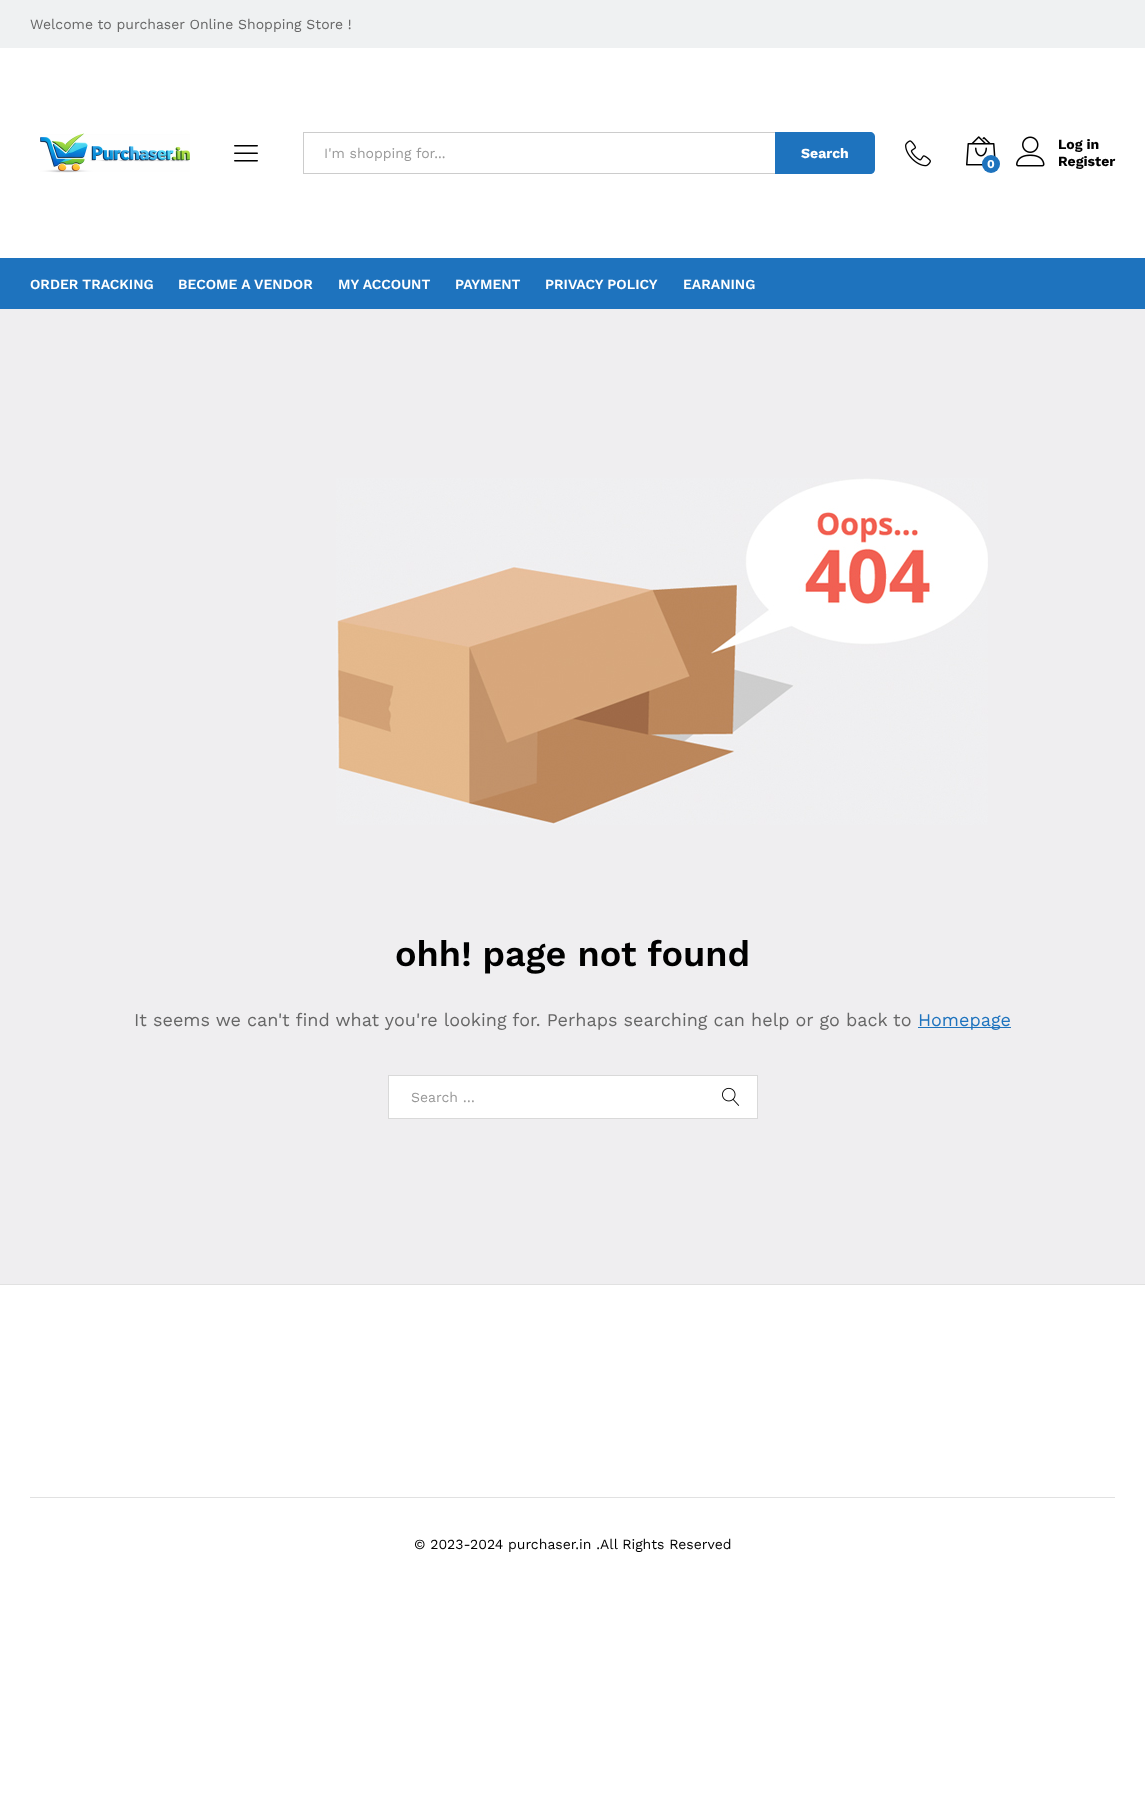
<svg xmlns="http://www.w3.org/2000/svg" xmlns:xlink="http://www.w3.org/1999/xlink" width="1145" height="1804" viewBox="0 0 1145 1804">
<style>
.cls-1{font:14px Work Sans;fill:#666666}
.cls-2{font:14px Work Sans;fill:#999999}
.cls-3{font:bold 14px Work Sans;fill:#ffffff}
.cls-4{font:bold 12px Work Sans;fill:#ffffff}
.cls-5{font:bold 14px Work Sans;fill:#000000}
.cls-6{font:600 14px Work Sans;fill:#ffffff}
.cls-7{font:600 36px Work Sans;fill:#000000}
.cls-8{font:18px Work Sans;fill:#666666}
.cls-9{font:18px Work Sans;fill:#1e73be}
.cls-10{font:14px Work Sans;fill:#000000}
</style>
<rect width="100%" height="100%" fill="#ffffff"/>
<rect fill="#eff1f2" x="0" y="0" width="1145" height="48"/>
<image xlink:href="image0.png" x="40" y="133" width="150" height="40"/>
<image xlink:href="image1.png" x="234" y="145" width="24" height="17"/>
<rect fill="#cccccc" x="303" y="132" width="1" height="42"/>
<rect fill="#cccccc" x="304" y="132" width="471" height="1"/>
<rect fill="#cccccc" x="304" y="173" width="471" height="1"/>
<path fill="#1e73be" d="M775 132H870C873 132 875 134 875 137V169C875 172 873 174 870 174H775Z"/>
<image xlink:href="image2.png" x="905" y="140" width="26" height="27"/>
<image xlink:href="image3.png" x="966" y="136" width="30" height="30"/>
<circle fill="#1e73be" cx="991" cy="164" r="9"/>
<image xlink:href="image4.png" x="1016" y="136" width="29" height="31"/>
<rect fill="#1e73be" x="0" y="258" width="1145" height="51"/>
<rect fill="#efeef0" x="0" y="309" width="1145" height="975"/>
<image xlink:href="image5.png" x="336" y="478" width="652" height="347"/>
<rect fill="#1e73be" x="918" y="1027" width="93" height="1"/>
<rect fill="#ffffff" stroke="#d9d9d9" x="388.5" y="1075.5" width="369" height="43"/>
<image xlink:href="image6.png" x="722" y="1087" width="18" height="19"/>
<rect fill="#e1e1e1" x="0" y="1284" width="1145" height="1"/>
<rect fill="#e1e1e1" x="30" y="1497" width="1085" height="1"/>
<text class="cls-1" x="30" y="29">Welcome to purchaser Online Shopping Store !</text>
<text class="cls-2" x="324" y="158">I'm shopping for...</text>
<text class="cls-3" x="801" y="158">Search</text>
<text class="cls-4" x="987" y="168">0</text>
<text class="cls-5"><tspan x="1058" y="149">Log in</tspan><tspan x="1058" y="166">Register</tspan></text>
<text class="cls-6" x="30" y="289">ORDER TRACKING</text>
<text class="cls-6" x="178" y="289">BECOME A VENDOR</text>
<text class="cls-6" x="338" y="289">MY ACCOUNT</text>
<text class="cls-6" x="455" y="289">PAYMENT</text>
<text class="cls-6" x="545" y="289">PRIVACY POLICY</text>
<text class="cls-6" x="683" y="289">EARANING</text>
<text class="cls-7" x="395" y="966">ohh! page not found</text>
<text class="cls-8" x="134" y="1026">It seems we can't find what you're looking for. Perhaps searching can help or go back to</text>
<text class="cls-9" x="918" y="1026">Homepage</text>
<text class="cls-2" x="411" y="1102">Search …</text>
<text class="cls-10" x="414" y="1549">© 2023-2024 purchaser.in .All Rights Reserved</text>
</svg>
